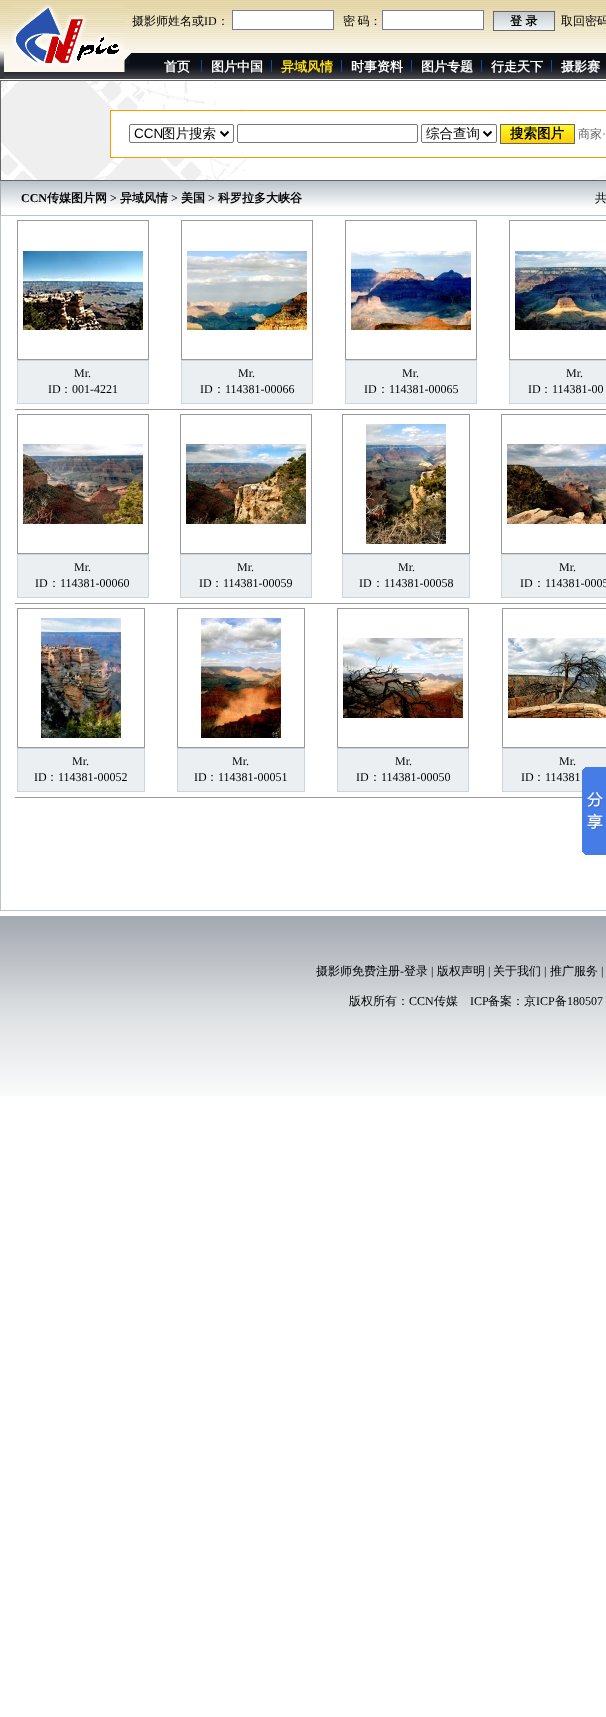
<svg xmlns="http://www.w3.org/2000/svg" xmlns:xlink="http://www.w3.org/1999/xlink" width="606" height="1717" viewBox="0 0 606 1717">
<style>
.cls-1{font:500 12px WenQuanYi Zen Hei;fill:#000000}
.cls-2{font:12px Liberation Serif;fill:#000000}
.cls-3{font:bold 12px WenQuanYi Zen Hei;fill:#000000}
.cls-4{font:bold 13px WenQuanYi Zen Hei;fill:#ffffff}
.cls-5{font:bold 13px WenQuanYi Zen Hei;fill:#ffe014}
.cls-6{font:13.5px Liberation Sans;fill:#000000}
.cls-7{font:500 13.5px WenQuanYi Zen Hei;fill:#000000}
.cls-8{font:bold 13.5px WenQuanYi Zen Hei;fill:#000000}
.cls-9{font:500 12px WenQuanYi Zen Hei;fill:#666666}
.cls-10{font:12px Liberation Serif;fill:#666666}
.cls-11{font:bold 12px Liberation Serif;fill:#000000}
</style>
<rect width="100%" height="100%" fill="#ffffff"/>
<image xlink:href="image0.png" x="0" y="0" width="606" height="79"/>
<image xlink:href="image1.png" x="0" y="20" width="132" height="59"/>
<image xlink:href="image2.png" x="11" y="4" width="112" height="64"/>
<rect fill="#ffffff" stroke="#727c9a" x="232.5" y="10.5" width="101" height="19"/>
<rect fill="#ffffff" stroke="#727c9a" x="382.5" y="10.5" width="101" height="19"/>
<image xlink:href="image3.png" x="493" y="11" width="62" height="20"/>
<rect fill="#134e9d" x="201" y="60" width="1" height="12"/>
<rect fill="#134e9d" x="271" y="60" width="1" height="12"/>
<rect fill="#134e9d" x="341" y="60" width="1" height="12"/>
<rect fill="#134e9d" x="411" y="60" width="1" height="12"/>
<rect fill="#134e9d" x="481" y="60" width="1" height="12"/>
<rect fill="#134e9d" x="551" y="60" width="1" height="12"/>
<image xlink:href="image4.png" x="0" y="80" width="606" height="101"/>
<rect fill="#ffffff" x="111" y="111" width="149" height="46"/>
<rect fill="none" stroke="#ff9900" x="110.5" y="110.5" width="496" height="47"/>
<rect fill="none" stroke="#767676" x="129.5" y="124.5" width="104" height="18" rx="1.5"/>
<path fill="none" stroke="#000000" stroke-width="2" d="M220.5 131.5L224.5 135.5L228.5 131.5"/>
<rect fill="none" stroke="#767676" x="237.5" y="124.5" width="180" height="18" rx="1.5"/>
<rect fill="none" stroke="#767676" x="421.5" y="124.5" width="75" height="18" rx="1.5"/>
<path fill="none" stroke="#000000" stroke-width="2" d="M483.5 131.5L487.5 135.5L491.5 131.5"/>
<image xlink:href="image5.png" x="500" y="124" width="75" height="20"/>
<image xlink:href="image6.png" x="1" y="181" width="605" height="27"/>
<rect fill="#acacac" x="0" y="181" width="1" height="34"/>
<rect fill="none" stroke="#b7c4ce" x="0.5" y="215.5" width="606" height="695"/>
<rect fill="none" stroke="#999999" x="17.5" y="220.5" width="131" height="139"/>
<image xlink:href="image7.png" x="23" y="251" width="120" height="79"/>
<rect fill="#eceff2" stroke="#ccd5dd" x="17.5" y="360.5" width="131" height="43"/>
<rect fill="none" stroke="#999999" x="181.5" y="220.5" width="131" height="139"/>
<image xlink:href="image8.png" x="187" y="251" width="120" height="79"/>
<rect fill="#eceff2" stroke="#ccd5dd" x="181.5" y="360.5" width="131" height="43"/>
<rect fill="none" stroke="#999999" x="345.5" y="220.5" width="131" height="139"/>
<image xlink:href="image9.png" x="351" y="251" width="120" height="79"/>
<rect fill="#eceff2" stroke="#ccd5dd" x="345.5" y="360.5" width="131" height="43"/>
<rect fill="none" stroke="#999999" x="509.5" y="220.5" width="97" height="139"/>
<image xlink:href="image10.png" x="515" y="251" width="91" height="79"/>
<rect fill="#eceff2" stroke="#ccd5dd" x="509.5" y="360.5" width="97" height="43"/>
<rect fill="#999999" x="15" y="409" width="591" height="1"/>
<rect fill="none" stroke="#999999" x="17.5" y="414.5" width="131" height="139"/>
<image xlink:href="image11.png" x="23" y="444" width="120" height="80"/>
<rect fill="#eceff2" stroke="#ccd5dd" x="17.5" y="554.5" width="131" height="43"/>
<rect fill="none" stroke="#999999" x="180.5" y="414.5" width="131" height="139"/>
<image xlink:href="image12.png" x="186" y="444" width="120" height="80"/>
<rect fill="#eceff2" stroke="#ccd5dd" x="180.5" y="554.5" width="131" height="43"/>
<rect fill="none" stroke="#999999" x="342.5" y="414.5" width="127" height="139"/>
<image xlink:href="image13.png" x="366" y="424" width="80" height="120"/>
<rect fill="#eceff2" stroke="#ccd5dd" x="342.5" y="554.5" width="127" height="43"/>
<rect fill="none" stroke="#999999" x="501.5" y="414.5" width="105" height="139"/>
<image xlink:href="image14.png" x="507" y="444" width="99" height="80"/>
<rect fill="#eceff2" stroke="#ccd5dd" x="501.5" y="554.5" width="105" height="43"/>
<rect fill="#999999" x="15" y="603" width="591" height="1"/>
<rect fill="none" stroke="#999999" x="17.5" y="608.5" width="127" height="139"/>
<image xlink:href="image15.png" x="41" y="618" width="80" height="120"/>
<rect fill="#eceff2" stroke="#ccd5dd" x="17.5" y="748.5" width="127" height="43"/>
<rect fill="none" stroke="#999999" x="177.5" y="608.5" width="127" height="139"/>
<image xlink:href="image16.png" x="201" y="618" width="80" height="120"/>
<rect fill="#eceff2" stroke="#ccd5dd" x="177.5" y="748.5" width="127" height="43"/>
<rect fill="none" stroke="#999999" x="337.5" y="608.5" width="131" height="139"/>
<image xlink:href="image17.png" x="343" y="638" width="120" height="80"/>
<rect fill="#eceff2" stroke="#ccd5dd" x="337.5" y="748.5" width="131" height="43"/>
<rect fill="none" stroke="#999999" x="502.5" y="608.5" width="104" height="139"/>
<image xlink:href="image18.png" x="508" y="638" width="98" height="80"/>
<rect fill="#eceff2" stroke="#ccd5dd" x="502.5" y="748.5" width="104" height="43"/>
<rect fill="#999999" x="15" y="797" width="567" height="1"/>
<image xlink:href="image19.png" x="582" y="767" width="24" height="88"/>
<image xlink:href="image20.png" x="0" y="916" width="606" height="180"/>
<text class="cls-1" x="132" y="25">摄影师姓名或</text>
<text class="cls-2" x="204" y="25">ID</text>
<text class="cls-1" x="217" y="25">：</text>
<text class="cls-1" x="343" y="25" word-spacing="-1">密 码：</text>
<text class="cls-3" x="510" y="25">登 录</text>
<text class="cls-1" x="561" y="25">取回密码</text>
<text class="cls-4" x="164" y="71">首页</text>
<text class="cls-4" x="211" y="71">图片中国</text>
<text class="cls-5" x="281" y="71">异域风情</text>
<text class="cls-4" x="351" y="71">时事资料</text>
<text class="cls-4" x="421" y="71">图片专题</text>
<text class="cls-4" x="491" y="71">行走天下</text>
<text class="cls-4" x="561" y="71">摄影赛</text>
<text class="cls-6" x="134" y="138">CCN</text>
<text class="cls-7" x="162" y="138">图片搜索</text>
<text class="cls-7" x="426" y="138">综合查询</text>
<text class="cls-8" x="510" y="138">搜索图片</text>
<text class="cls-9" x="578" y="138">商家</text>
<text class="cls-10" x="602" y="138">·</text>
<text class="cls-11" x="21" y="202">CCN</text>
<text class="cls-3" x="47" y="202">传媒图片网</text>
<text class="cls-11" x="110" y="202">&gt;</text>
<text class="cls-3" x="120" y="202">异域风情</text>
<text class="cls-11" x="171" y="202">&gt;</text>
<text class="cls-3" x="181" y="202">美国</text>
<text class="cls-11" x="208" y="202">&gt;</text>
<text class="cls-3" x="218" y="202">科罗拉多大峡谷</text>
<text class="cls-1" x="595" y="202">共</text>
<text class="cls-2" x="74" y="377">Mr.</text>
<text class="cls-2" x="48" y="393">ID</text>
<text class="cls-1" x="60" y="393">：</text>
<text class="cls-2" x="72" y="393">001-4221</text>
<text class="cls-2" x="238" y="377">Mr.</text>
<text class="cls-2" x="200" y="393">ID</text>
<text class="cls-1" x="213" y="393">：</text>
<text class="cls-2" x="225" y="393">114381-00066</text>
<text class="cls-2" x="402" y="377">Mr.</text>
<text class="cls-2" x="364" y="393">ID</text>
<text class="cls-1" x="377" y="393">：</text>
<text class="cls-2" x="389" y="393">114381-00065</text>
<text class="cls-2" x="566" y="377">Mr.</text>
<text class="cls-2" x="528" y="393">ID</text>
<text class="cls-1" x="540" y="393">：</text>
<text class="cls-2" x="552" y="393">114381-00</text>
<text class="cls-2" x="74" y="571">Mr.</text>
<text class="cls-2" x="35" y="587">ID</text>
<text class="cls-1" x="48" y="587">：</text>
<text class="cls-2" x="60" y="587">114381-00060</text>
<text class="cls-2" x="237" y="571">Mr.</text>
<text class="cls-2" x="199" y="587">ID</text>
<text class="cls-1" x="211" y="587">：</text>
<text class="cls-2" x="223" y="587">114381-00059</text>
<text class="cls-2" x="398" y="571">Mr.</text>
<text class="cls-2" x="359" y="587">ID</text>
<text class="cls-1" x="372" y="587">：</text>
<text class="cls-2" x="384" y="587">114381-00058</text>
<text class="cls-2" x="559" y="571">Mr.</text>
<text class="cls-2" x="520" y="587">ID</text>
<text class="cls-1" x="533" y="587">：</text>
<text class="cls-2" x="545" y="587">114381-0005</text>
<text class="cls-2" x="72" y="765">Mr.</text>
<text class="cls-2" x="34" y="781">ID</text>
<text class="cls-1" x="46" y="781">：</text>
<text class="cls-2" x="58" y="781">114381-00052</text>
<text class="cls-2" x="232" y="765">Mr.</text>
<text class="cls-2" x="194" y="781">ID</text>
<text class="cls-1" x="206" y="781">：</text>
<text class="cls-2" x="218" y="781">114381-00051</text>
<text class="cls-2" x="395" y="765">Mr.</text>
<text class="cls-2" x="356" y="781">ID</text>
<text class="cls-1" x="369" y="781">：</text>
<text class="cls-2" x="381" y="781">114381-00050</text>
<text class="cls-2" x="559" y="765">Mr.</text>
<text class="cls-2" x="521" y="781">ID</text>
<text class="cls-1" x="533" y="781">：</text>
<text class="cls-2" x="545" y="781">114381</text>
<text class="cls-1" x="316" y="975">摄影师免费注册</text>
<text class="cls-2" x="400" y="975">-</text>
<text class="cls-1" x="404" y="975">登录</text>
<text class="cls-2" x="431" y="975">|</text>
<text class="cls-1" x="437" y="975">版权声明</text>
<text class="cls-2" x="488" y="975">|</text>
<text class="cls-1" x="493" y="975">关于我们</text>
<text class="cls-2" x="544" y="975">|</text>
<text class="cls-1" x="550" y="975">推广服务</text>
<text class="cls-2" x="601" y="975">|</text>
<text class="cls-1" x="349" y="1005">版权所有：</text>
<text class="cls-2" x="409" y="1005">CCN</text>
<text class="cls-1" x="434" y="1005">传媒</text>
<text class="cls-2" x="470" y="1005">ICP</text>
<text class="cls-1" x="488" y="1005">备案：京</text>
<text class="cls-2" x="536" y="1005">ICP</text>
<text class="cls-1" x="555" y="1005">备</text>
<text class="cls-2" x="567" y="1005">180507</text>
</svg>
